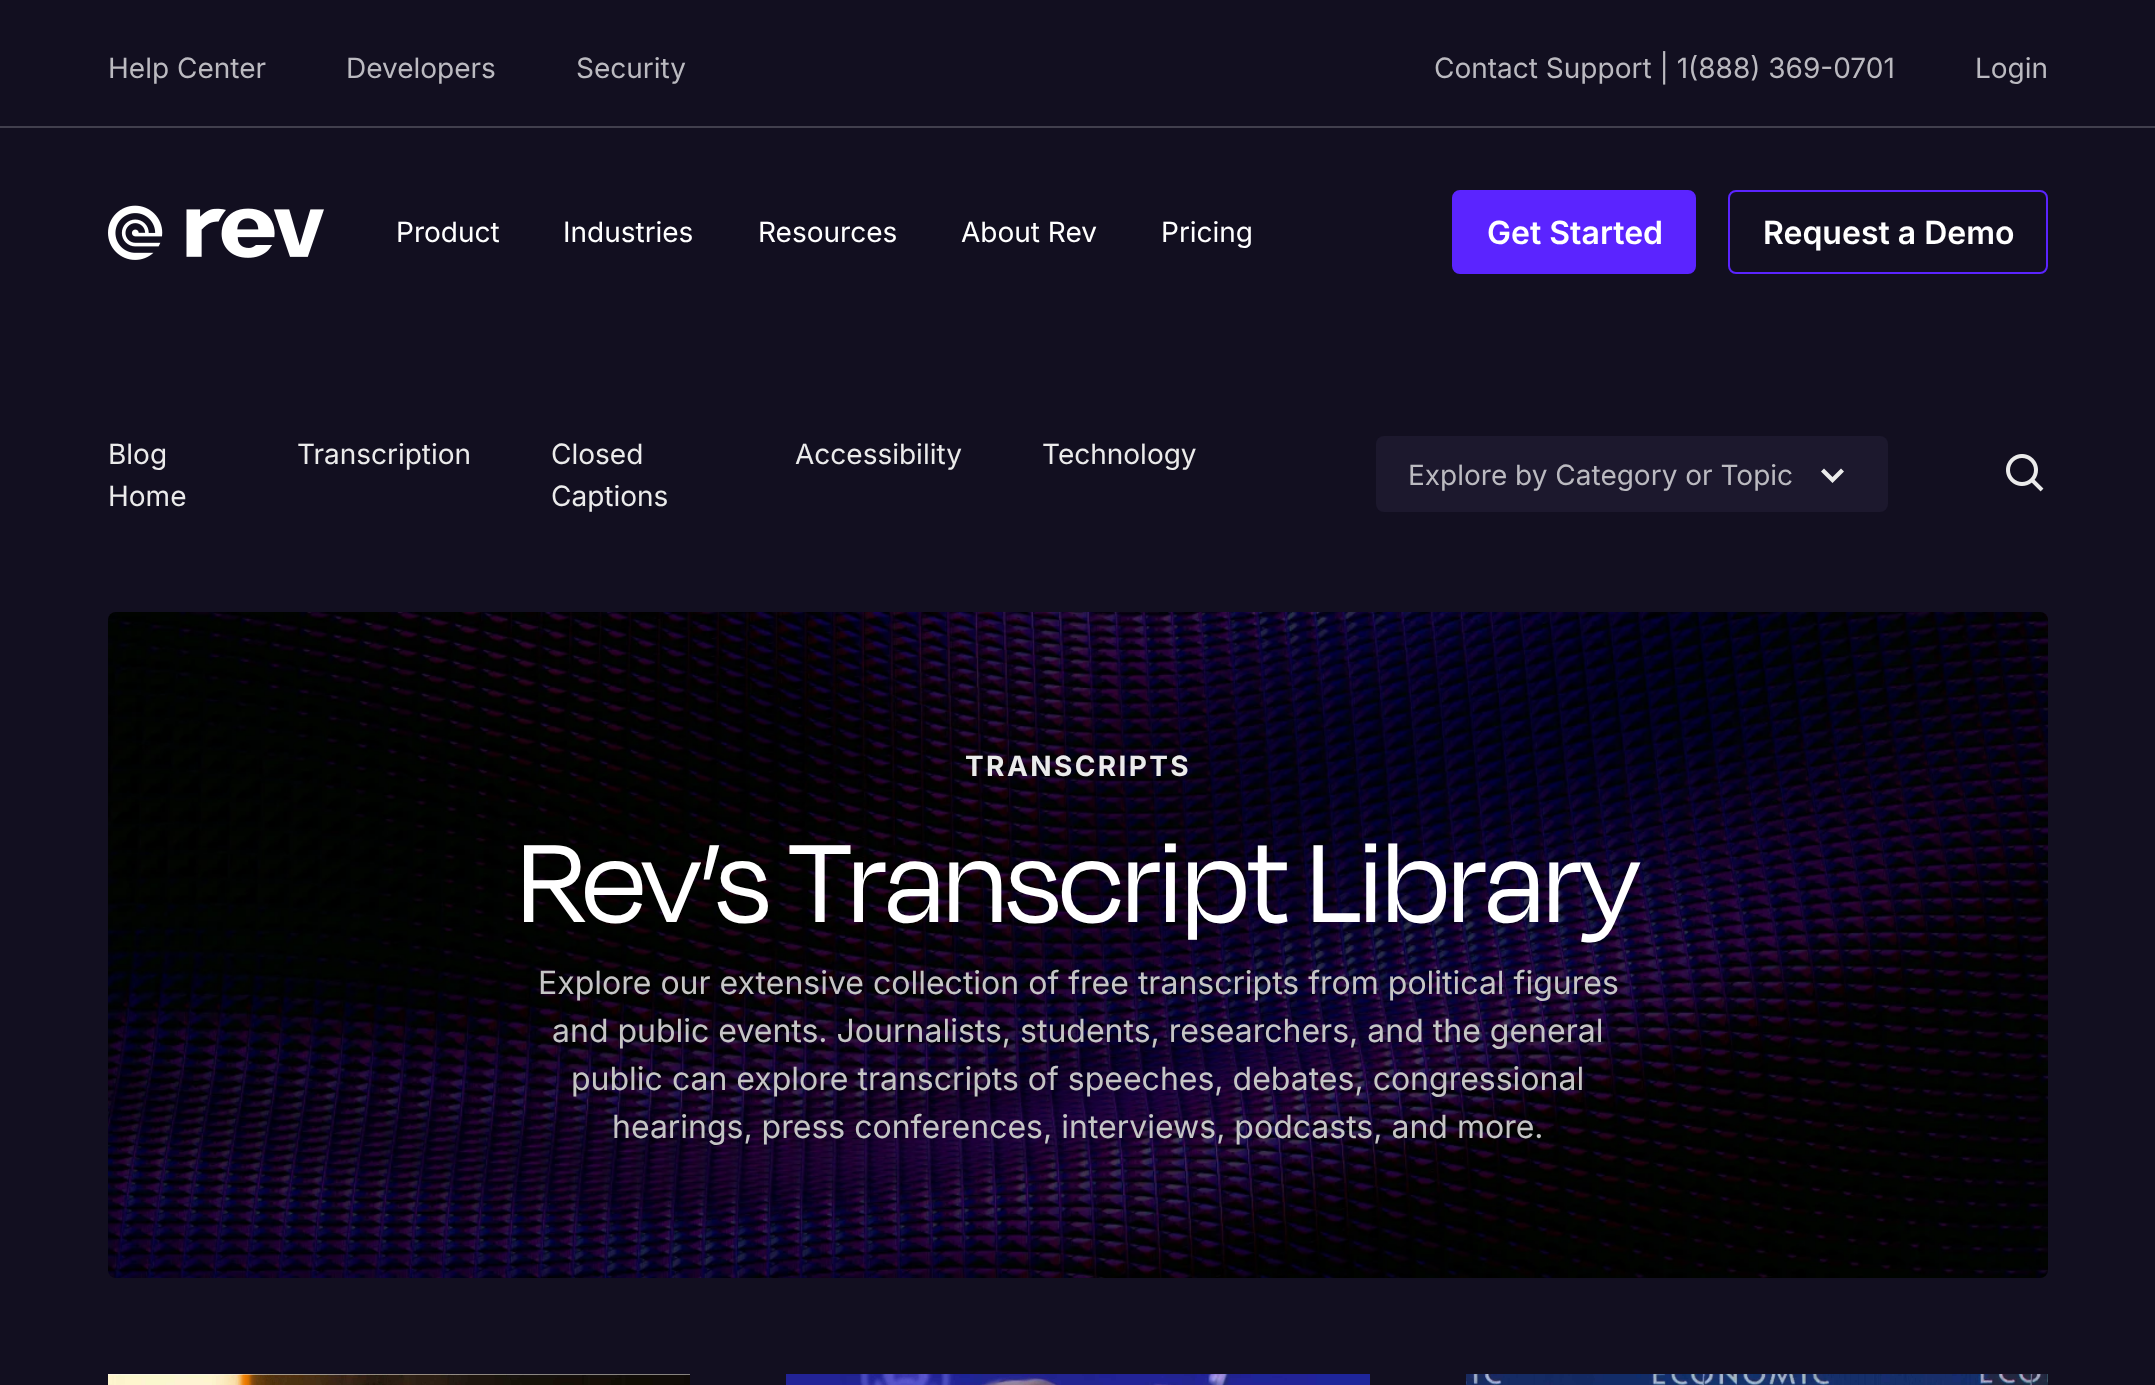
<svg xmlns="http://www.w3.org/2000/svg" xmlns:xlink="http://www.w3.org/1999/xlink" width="2155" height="1385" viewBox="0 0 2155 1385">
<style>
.cls-1{font:28px Inter;fill:#bbbac0}
.cls-2{font:28px Inter;fill:#ffffff}
.cls-3{font:600 32px Inter;fill:#ffffff}
.cls-4{font:28px Inter;fill:#ebebeb}
.cls-5{font:bold 28px Inter;letter-spacing:2.4px;fill:#ebebeb}
.cls-6{font:128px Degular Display;fill:#ffffff}
.cls-7{font:32px Inter;fill:#c5c5c5}
</style>
<rect width="100%" height="100%" fill="#120f20"/>
<rect fill="#413f4d" x="0" y="126" width="2155" height="2"/>
<image xlink:href="image0.png" x="108" y="205" width="216" height="55"/>
<rect fill="#5b24ff" stroke="#5b24ff" stroke-width="2" x="1453" y="191" width="242" height="82" rx="7"/>
<rect fill="none" stroke="#5b24ff" stroke-width="2" x="1729" y="191" width="318" height="82" rx="7"/>
<rect fill="#1c182d" x="1376" y="436" width="512" height="76" rx="8"/>
<path fill="#ebebeb" d="M1844 471.5L1841 468.5L1832.5 477L1824 468.5L1821 471.5L1832.5 483Z"/>
<image xlink:href="image1.png" x="2006" y="454" width="38" height="38"/>
<image xlink:href="image2.png" x="108" y="612" width="1940" height="666"/>
<image xlink:href="image3.png" x="108" y="1374" width="582" height="11"/>
<image xlink:href="image4.png" x="786" y="1374" width="584" height="11"/>
<image xlink:href="image5.png" x="1466" y="1374" width="582" height="11"/>
<text class="cls-1" x="108" y="78">Help Center</text>
<text class="cls-1" x="346" y="78">Developers</text>
<text class="cls-1" x="576" y="78">Security</text>
<text class="cls-1" x="1434" y="78">Contact Support | 1(888) 369-0701</text>
<text class="cls-1" x="1975" y="78">Login</text>
<text class="cls-2" x="396" y="242">Product</text>
<text class="cls-2" x="563" y="242">Industries</text>
<text class="cls-2" x="758" y="242">Resources</text>
<text class="cls-2" x="961" y="242">About Rev</text>
<text class="cls-2" x="1161" y="242">Pricing</text>
<text class="cls-3" x="1487" y="244">Get Started</text>
<text class="cls-3" x="1763" y="244">Request a Demo</text>
<text class="cls-4"><tspan x="108" y="464">Blog</tspan><tspan x="108" y="506">Home</tspan></text>
<text class="cls-4" x="297" y="464">Transcription</text>
<text class="cls-4"><tspan x="551" y="464">Closed</tspan><tspan x="551" y="506">Captions</tspan></text>
<text class="cls-4" x="795" y="464">Accessibility</text>
<text class="cls-4" x="1042" y="464">Technology</text>
<text class="cls-1" x="1408" y="485">Explore by Category or Topic</text>
<text class="cls-5" x="965" y="776">TRANSCRIPTS</text>
<text class="cls-6" x="518" y="922">Rev’s Transcript Library</text>
<text class="cls-7" x="538" y="994">Explore our extensive collection of free transcripts from political figures</text>
<text class="cls-7" x="552" y="1042">and public events. Journalists, students, researchers, and the general</text>
<text class="cls-7" x="571" y="1090">public can explore transcripts of speeches, debates, congressional</text>
<text class="cls-7" x="612" y="1138">hearings, press conferences, interviews, podcasts, and more.</text>
</svg>
